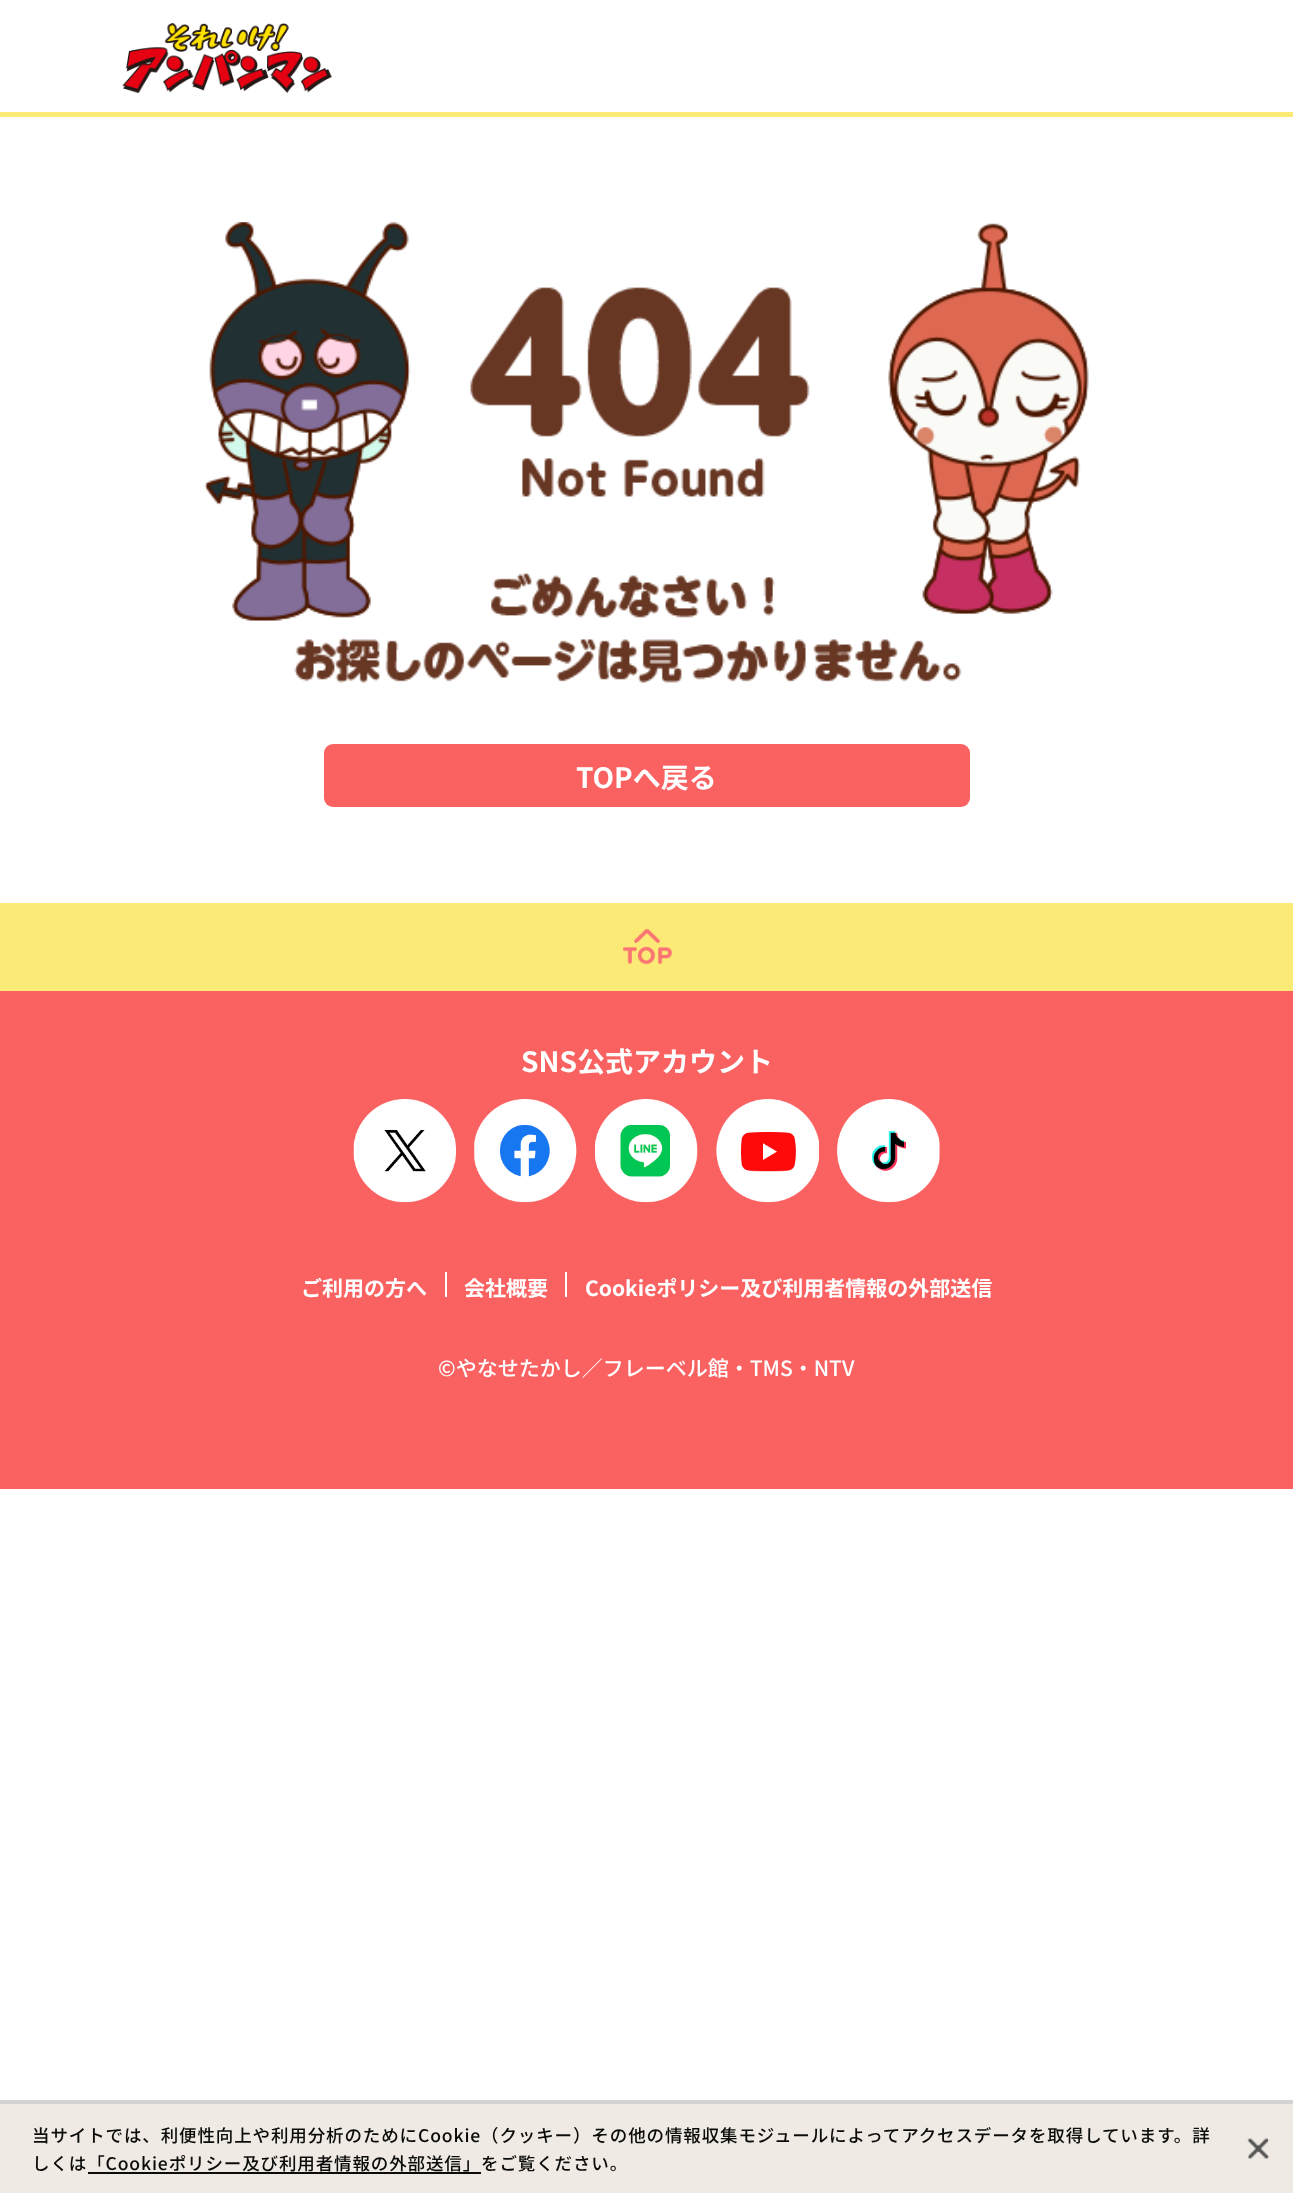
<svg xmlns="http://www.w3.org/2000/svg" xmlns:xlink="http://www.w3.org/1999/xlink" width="1293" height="2193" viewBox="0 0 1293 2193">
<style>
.cls-1{font:bold 28px Noto Sans JP;fill:#ffffff}
.cls-2{font:bold 21px Noto Sans JP;fill:#ffffff}
.cls-3{font:500 21px Noto Sans JP;fill:#ffffff}
.cls-4{font:500 17.5px Noto Sans JP;letter-spacing:0.88px;fill:#0b0b0a}
</style>
<rect width="100%" height="100%" fill="#ffffff"/>
<rect fill="#fbea76" x="0" y="112" width="1293" height="5"/>
<image xlink:href="image0.png" x="122" y="23" width="210" height="71"/>
<image xlink:href="image1.png" x="204" y="222" width="885" height="461"/>
<rect fill="#fa6161" x="324" y="744" width="646" height="63" rx="9"/>
<rect fill="#fa6161" x="0" y="991" width="1293" height="498"/>
<rect fill="#fbea76" x="0" y="903" width="1293" height="88"/>
<image xlink:href="image2.png" x="623" y="929" width="49" height="36"/>
<image xlink:href="image3.png" x="353" y="1099" width="104" height="104"/>
<image xlink:href="image4.png" x="474" y="1099" width="103" height="104"/>
<image xlink:href="image5.png" x="595" y="1099" width="103" height="104"/>
<image xlink:href="image6.png" x="716" y="1099" width="103" height="104"/>
<image xlink:href="image7.png" x="837" y="1099" width="103" height="104"/>
<rect fill="#ffffff" x="445" y="1272" width="2" height="25"/>
<rect fill="#ffffff" x="565" y="1272" width="2" height="25"/>
<rect fill="#efebe4" x="0" y="2104" width="1293" height="89"/>
<rect fill="#d3d3d3" x="0" y="2100" width="1293" height="4"/>
<rect fill="#0b0b0a" x="88" y="2172" width="393" height="2"/>
<image xlink:href="image8.png" x="1247" y="2138" width="22" height="21"/>
<text class="cls-1" x="576" y="788">TOPへ戻る</text>
<text class="cls-1" x="521" y="1072">SNS公式アカウント</text>
<text class="cls-2" x="301" y="1296">ご利用の方へ</text>
<text class="cls-2" x="464" y="1296">会社概要</text>
<text class="cls-2" x="585" y="1296">Cookieポリシー及び利用者情報の外部送信</text>
<text class="cls-3" x="438" y="1376">©やなせたかし／フレーベル館・TMS・NTV</text>
<text class="cls-4"><tspan x="32" y="2142">当サイトでは、利便性向上や利用分析のためにCookie（クッキー）その他の情報収集モジュールによってアクセスデータを取得しています。詳</tspan><tspan x="32" y="2170">しくは「Cookieポリシー及び利用者情報の外部送信」をご覧ください。</tspan></text>
</svg>
